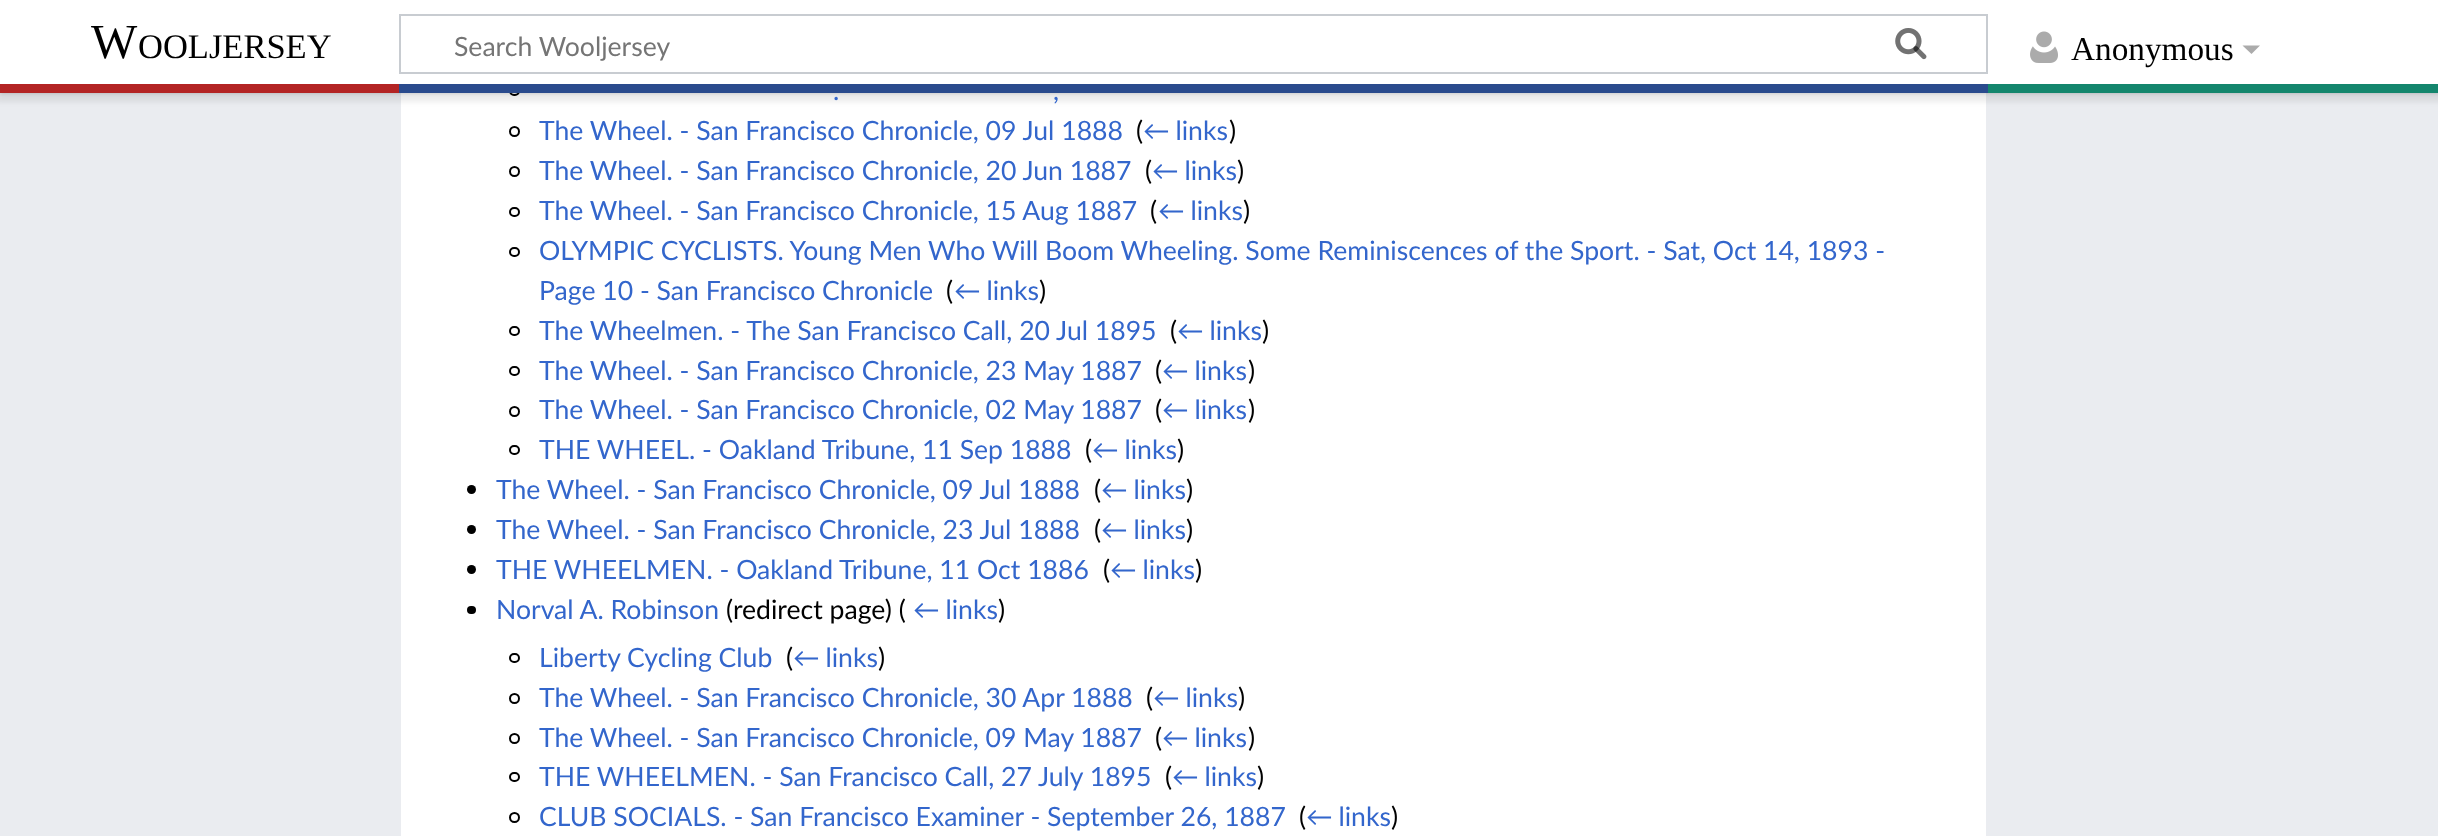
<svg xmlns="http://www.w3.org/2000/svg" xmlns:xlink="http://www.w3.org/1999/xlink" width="2438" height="836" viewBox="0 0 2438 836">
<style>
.cls-1{font:49px Liberation Serif;fill:#000000}
.cls-2{font:34.5px Liberation Serif;fill:#000000}
.cls-3{font:26.6px Lato;fill:#757575}
.cls-4{font:33.25px Liberation Serif;fill:#000000}
.cls-5{font:26.6px Lato;fill:#3366cc}
.cls-6{font:26.6px Lato;fill:#000000}
</style>
<rect width="100%" height="100%" fill="#eaecf0"/>
<rect fill="#ffffff" x="401" y="93" width="1585" height="743"/>
<rect fill="none" stroke="#000000" stroke-width="2" x="510" y="87" width="9" height="8" rx="4"/>
<rect fill="#000000" fill-opacity="0.2" filter="blur(2px)" x="0" y="84" width="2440" height="9"/>
<rect fill="#000000" fill-opacity="0.07" filter="blur(2.5px)" x="-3" y="86" width="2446" height="16"/>
<rect fill="#ffffff" x="0" y="0" width="2438" height="84"/>
<rect fill="none" stroke="#c8ccd1" stroke-width="2" x="400" y="15" width="1587" height="58"/>
<image xlink:href="image0.png" x="1895" y="28" width="32" height="32"/>
<image xlink:href="image1.png" x="1895" y="28" width="32" height="32"/>
<image xlink:href="image2.png" x="2030" y="31" width="28" height="32"/>
<path fill="#ababab" d="M2260 45.5L2251.5 54L2242.5 45.5Z"/>
<rect fill="#b32424" x="0" y="84" width="399" height="9"/>
<rect fill="#2a4b8d" x="399" y="84" width="1589" height="9"/>
<rect fill="#14866d" x="1988" y="84" width="450" height="9"/>
<circle fill="none" stroke="#000000" stroke-width="2" cx="514.5" cy="131.5" r="4.5"/>
<circle fill="none" stroke="#000000" stroke-width="2" cx="514.5" cy="171.5" r="4.5"/>
<rect fill="none" stroke="#000000" stroke-width="2" x="510" y="208" width="9" height="8" rx="4"/>
<rect fill="none" stroke="#000000" stroke-width="2" x="510" y="248" width="9" height="8" rx="4"/>
<rect fill="none" stroke="#000000" stroke-width="2" x="510" y="327" width="9" height="8" rx="4"/>
<rect fill="none" stroke="#000000" stroke-width="2" x="510" y="367" width="9" height="8" rx="4"/>
<circle fill="none" stroke="#000000" stroke-width="2" cx="514.5" cy="411.5" r="4.5"/>
<rect fill="none" stroke="#000000" stroke-width="2" x="510" y="446" width="9" height="8" rx="4"/>
<circle fill="#000000" cx="471.5" cy="489.5" r="4.5"/>
<circle fill="#000000" cx="471.5" cy="529.5" r="4.5"/>
<circle fill="#000000" cx="471.5" cy="569.5" r="4.5"/>
<rect fill="#000000" x="467" y="606" width="9" height="8" rx="4"/>
<rect fill="none" stroke="#000000" stroke-width="2" x="510" y="654" width="9" height="8" rx="4"/>
<circle fill="none" stroke="#000000" stroke-width="2" cx="514.5" cy="698.5" r="4.5"/>
<circle fill="none" stroke="#000000" stroke-width="2" cx="514.5" cy="738.5" r="4.5"/>
<rect fill="none" stroke="#000000" stroke-width="2" x="510" y="773" width="9" height="8" rx="4"/>
<circle fill="none" stroke="#000000" stroke-width="2" cx="514.5" cy="817.5" r="4.5"/>
<text class="cls-1" x="91" y="58">W</text>
<text class="cls-2" x="138" y="58">OOLJERSEY</text>
<text class="cls-3" x="454" y="56">Search Wooljersey</text>
<text class="cls-4" x="2071" y="60">Anonymous</text>
<text class="cls-5" x="833" y="100">.</text>
<text class="cls-5" x="1053" y="100">,</text>
<text class="cls-5" x="539" y="140">The Wheel. - San Francisco Chronicle, 09 Jul 1888</text>
<text class="cls-6" x="1136" y="140">(</text>
<text class="cls-5" x="1143" y="140" word-spacing="-1">← links</text>
<text class="cls-6" x="1229" y="140">)</text>
<text class="cls-5" x="539" y="180">The Wheel. - San Francisco Chronicle, 20 Jun 1887</text>
<text class="cls-6" x="1145" y="180">(</text>
<text class="cls-5" x="1152" y="180" word-spacing="-1">← links</text>
<text class="cls-6" x="1237" y="180">)</text>
<text class="cls-5" x="539" y="220">The Wheel. - San Francisco Chronicle, 15 Aug 1887</text>
<text class="cls-6" x="1150" y="220">(</text>
<text class="cls-5" x="1158" y="220" word-spacing="-1">← links</text>
<text class="cls-6" x="1243" y="220">)</text>
<text class="cls-5"><tspan x="539" y="260">OLYMPIC CYCLISTS. Young Men Who Will Boom Wheeling. Some Reminiscences of the Sport. - Sat, Oct 14, 1893 -</tspan><tspan x="539" y="300">Page 10 - San Francisco Chronicle</tspan></text>
<text class="cls-6" x="946" y="300">(</text>
<text class="cls-5" x="954" y="300" word-spacing="-1">← links</text>
<text class="cls-6" x="1039" y="300">)</text>
<text class="cls-5" x="539" y="340">The Wheelmen. - The San Francisco Call, 20 Jul 1895</text>
<text class="cls-6" x="1170" y="340">(</text>
<text class="cls-5" x="1177" y="340" word-spacing="-1">← links</text>
<text class="cls-6" x="1262" y="340">)</text>
<text class="cls-5" x="539" y="380">The Wheel. - San Francisco Chronicle, 23 May 1887</text>
<text class="cls-6" x="1155" y="380">(</text>
<text class="cls-5" x="1162" y="380" word-spacing="-1">← links</text>
<text class="cls-6" x="1248" y="380">)</text>
<text class="cls-5" x="539" y="419">The Wheel. - San Francisco Chronicle, 02 May 1887</text>
<text class="cls-6" x="1155" y="419">(</text>
<text class="cls-5" x="1162" y="419" word-spacing="-1">← links</text>
<text class="cls-6" x="1248" y="419">)</text>
<text class="cls-5" x="539" y="459">THE WHEEL. - Oakland Tribune, 11 Sep 1888</text>
<text class="cls-6" x="1085" y="459">(</text>
<text class="cls-5" x="1092" y="459" word-spacing="-1">← links</text>
<text class="cls-6" x="1177" y="459">)</text>
<text class="cls-5" x="496" y="499">The Wheel. - San Francisco Chronicle, 09 Jul 1888</text>
<text class="cls-6" x="1094" y="499">(</text>
<text class="cls-5" x="1101" y="499" word-spacing="-1">← links</text>
<text class="cls-6" x="1186" y="499">)</text>
<text class="cls-5" x="496" y="539">The Wheel. - San Francisco Chronicle, 23 Jul 1888</text>
<text class="cls-6" x="1094" y="539">(</text>
<text class="cls-5" x="1101" y="539" word-spacing="-1">← links</text>
<text class="cls-6" x="1186" y="539">)</text>
<text class="cls-5" x="496" y="579">THE WHEELMEN. - Oakland Tribune, 11 Oct 1886</text>
<text class="cls-6" x="1103" y="579">(</text>
<text class="cls-5" x="1110" y="579" word-spacing="-1">← links</text>
<text class="cls-6" x="1195" y="579">)</text>
<text class="cls-5" x="496" y="619">Norval A. Robinson</text>
<text class="cls-6" x="726" y="619">(redirect page)  (</text>
<text class="cls-5" x="913" y="619" word-spacing="-1">← links</text>
<text class="cls-6" x="998" y="619">)</text>
<text class="cls-5" x="539" y="667">Liberty Cycling Club</text>
<text class="cls-6" x="786" y="667">(</text>
<text class="cls-5" x="793" y="667" word-spacing="-1">← links</text>
<text class="cls-6" x="878" y="667">)</text>
<text class="cls-5" x="539" y="707">The Wheel. - San Francisco Chronicle, 30 Apr 1888</text>
<text class="cls-6" x="1146" y="707">(</text>
<text class="cls-5" x="1153" y="707" word-spacing="-1">← links</text>
<text class="cls-6" x="1238" y="707">)</text>
<text class="cls-5" x="539" y="747">The Wheel. - San Francisco Chronicle, 09 May 1887</text>
<text class="cls-6" x="1155" y="747">(</text>
<text class="cls-5" x="1162" y="747" word-spacing="-1">← links</text>
<text class="cls-6" x="1248" y="747">)</text>
<text class="cls-5" x="539" y="786">THE WHEELMEN. - San Francisco Call, 27 July 1895</text>
<text class="cls-6" x="1165" y="786">(</text>
<text class="cls-5" x="1172" y="786" word-spacing="-1">← links</text>
<text class="cls-6" x="1257" y="786">)</text>
<text class="cls-5" x="539" y="826">CLUB SOCIALS. - San Francisco Examiner - September 26, 1887</text>
<text class="cls-6" x="1299" y="826">(</text>
<text class="cls-5" x="1306" y="826" word-spacing="-1">← links</text>
<text class="cls-6" x="1391" y="826">)</text>
</svg>
